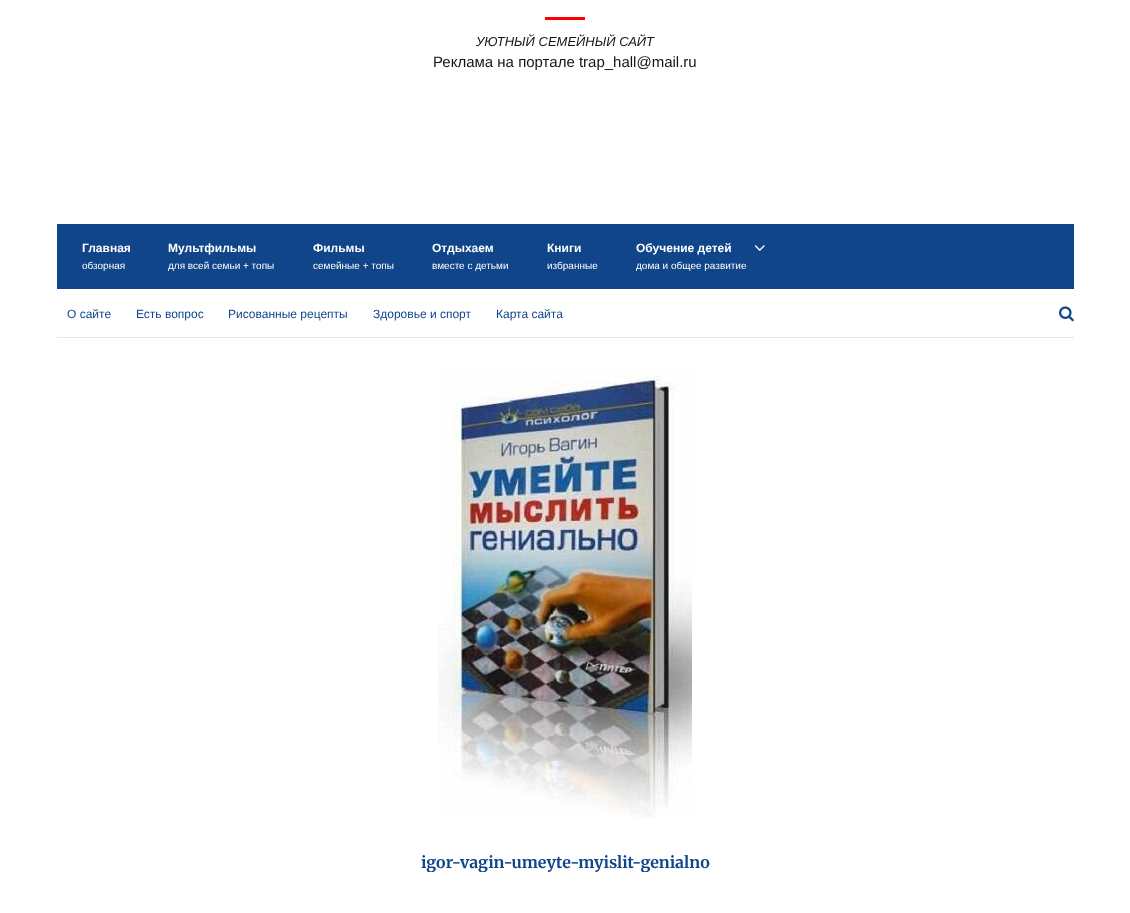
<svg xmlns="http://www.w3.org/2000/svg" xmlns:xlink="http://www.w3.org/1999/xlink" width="1130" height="913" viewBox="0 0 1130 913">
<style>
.cls-1{font:italic 13px Liberation Sans;fill:#141414}
.cls-2{font:15px Liberation Sans;fill:#141414}
.cls-3{font:bold 12px Liberation Sans;fill:#ffffff}
.cls-4{font:10px Liberation Sans;fill:#ffffff}
.cls-5{font:12px Liberation Sans;fill:#114589}
.cls-6{font:bold 16px Merriweather;fill:#114589}
</style>
<defs>
<clipPath id="clip1"><rect x="209" y="853" width="712" height="19"/></clipPath>
</defs>
<rect width="100%" height="100%" fill="#ffffff"/>
<rect fill="#ff0000" x="545" y="17" width="40" height="3"/>
<rect fill="#114589" x="57" y="224" width="1017" height="65"/>
<image xlink:href="image0.png" x="754" y="245" width="11" height="6"/>
<rect fill="#e6e6e6" x="57" y="337" width="1017" height="1"/>
<image xlink:href="image1.png" x="1059" y="306" width="15" height="16"/>
<image xlink:href="image2.png" x="438" y="368" width="254" height="450"/>
<text class="cls-1" x="476" y="46">УЮТНЫЙ СЕМЕЙНЫЙ САЙТ</text>
<text class="cls-2" x="433" y="67">Реклама на портале trap_hall@mail.ru</text>
<text class="cls-3" x="82" y="252">Главная</text>
<text class="cls-4" x="82" y="269">обзорная</text>
<text class="cls-3" x="168" y="252">Мультфильмы</text>
<text class="cls-4" x="168" y="269">для всей семьи + топы</text>
<text class="cls-3" x="313" y="252">Фильмы</text>
<text class="cls-4" x="313" y="269">семейные + топы</text>
<text class="cls-3" x="432" y="252">Отдыхаем</text>
<text class="cls-4" x="432" y="269">вместе с детьми</text>
<text class="cls-3" x="547" y="252">Книги</text>
<text class="cls-4" x="547" y="269">избранные</text>
<text class="cls-3" x="636" y="252">Обучение детей</text>
<text class="cls-4" x="636" y="269">дома и общее развитие</text>
<text class="cls-5" x="67" y="318">О сайте</text>
<text class="cls-5" x="136" y="318">Есть вопрос</text>
<text class="cls-5" x="228" y="318">Рисованные рецепты</text>
<text class="cls-5" x="373" y="318">Здоровье и спорт</text>
<text class="cls-5" x="496" y="318">Карта сайта</text>
<g clip-path="url(#clip1)">
<text class="cls-6" x="421" y="868">igor-vagin-umeyte-myislit-genialno</text>
</g>
</svg>
